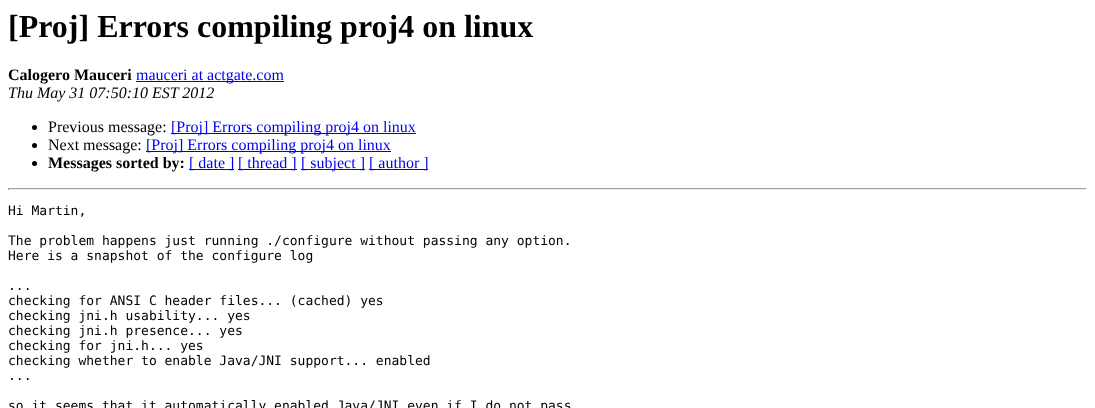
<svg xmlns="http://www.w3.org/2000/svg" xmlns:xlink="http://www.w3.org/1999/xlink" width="1095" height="408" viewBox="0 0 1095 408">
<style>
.cls-1{font:bold 32px Liberation Serif;fill:#000000}
.cls-2{font:bold 16px Liberation Serif;fill:#000000}
.cls-3{font:16px Liberation Serif;fill:#0000ee}
.cls-4{font:italic 16px Liberation Serif;fill:#000000}
.cls-5{font:16px Liberation Serif;fill:#000000}
.cls-6{font:13px DejaVu Sans Mono;fill:#000000}
</style>
<rect width="100%" height="100%" fill="#ffffff"/>
<rect fill="#0000ee" x="136" y="81" width="148" height="1"/>
<circle fill="#000000" cx="34.5" cy="127.5" r="2.5"/>
<rect fill="#0000ee" x="171" y="133" width="245" height="1"/>
<circle fill="#000000" cx="34.5" cy="145.5" r="2.5"/>
<rect fill="#0000ee" x="146" y="151" width="245" height="1"/>
<circle fill="#000000" cx="34.5" cy="163.5" r="2.5"/>
<rect fill="#0000ee" x="189" y="169" width="45" height="1"/>
<rect fill="#0000ee" x="238" y="169" width="59" height="1"/>
<rect fill="#0000ee" x="301" y="169" width="64" height="1"/>
<rect fill="#0000ee" x="369" y="169" width="59" height="1"/>
<rect fill="#9f9f9f" x="8" y="188" width="1079" height="1"/>
<rect fill="#eeeeee" x="1086" y="188" width="1" height="2"/>
<rect fill="#eeeeee" x="8" y="189" width="1079" height="1"/>
<rect fill="#9f9f9f" x="8" y="188" width="1" height="2"/>
<text class="cls-1" x="8" y="37">[Proj] Errors compiling proj4 on linux</text>
<text class="cls-2" x="8" y="80">Calogero Mauceri</text>
<text class="cls-3" x="136" y="80">mauceri at actgate.com</text>
<text class="cls-4" x="8" y="98">Thu May 31 07:50:10 EST 2012</text>
<text class="cls-5" x="48" y="132">Previous message:</text>
<text class="cls-3" x="171" y="132">[Proj] Errors compiling proj4 on linux</text>
<text class="cls-5" x="48" y="150">Next message:</text>
<text class="cls-3" x="146" y="150">[Proj] Errors compiling proj4 on linux</text>
<text class="cls-2" x="48" y="168">Messages sorted by:</text>
<text class="cls-3" x="189" y="168">[ date ]</text>
<text class="cls-3" x="238" y="168">[ thread ]</text>
<text class="cls-3" x="301" y="168">[ subject ]</text>
<text class="cls-3" x="369" y="168">[ author ]</text>
<text class="cls-6" x="8" y="215">Hi Martin,</text>
<text class="cls-6"><tspan x="8" y="245">The problem happens just running ./configure without passing any option.</tspan><tspan x="8" y="260">Here is a snapshot of the configure log</tspan></text>
<text class="cls-6"><tspan x="8" y="290">...</tspan><tspan x="8" y="305">checking for ANSI C header files... (cached) yes</tspan><tspan x="8" y="320">checking jni.h usability... yes</tspan><tspan x="8" y="335">checking jni.h presence... yes</tspan><tspan x="8" y="350">checking for jni.h... yes</tspan><tspan x="8" y="365">checking whether to enable Java/JNI support... enabled</tspan><tspan x="8" y="380">...</tspan></text>
<text class="cls-6" x="8" y="410">so it seems that it automatically enabled Java/JNI even if I do not pass</text>
</svg>
